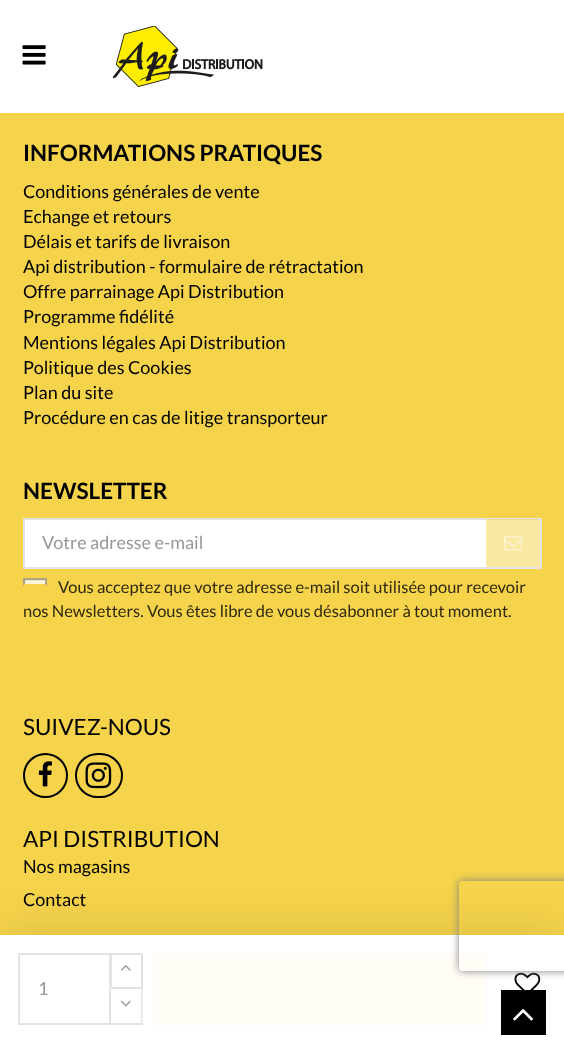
<svg xmlns="http://www.w3.org/2000/svg" xmlns:xlink="http://www.w3.org/1999/xlink" width="564" height="1052" viewBox="0 0 564 1052">
<style>
.cls-1{font:bold 22.5px Lato;fill:#000000}
.cls-2{font:18px Lato;fill:#000000}
.cls-3{font:18px Lato;fill:#979797}
.cls-4{font:16.5px Lato;fill:#312a0f}
.cls-5{font:22.5px Lato;fill:#000000}
</style>
<defs>
<clipPath id="clip1"><path d="M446 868H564V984H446ZM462 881H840C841.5 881 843 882.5 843 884V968C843 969.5 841.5 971 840 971H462C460.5 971 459 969.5 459 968V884C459 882.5 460.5 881 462 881Z" clip-rule="evenodd"/></clipPath>
</defs>
<rect width="100%" height="100%" fill="#f5d34b"/>
<rect fill="#ffffff" x="0" y="0" width="564" height="113"/>
<image xlink:href="image0.png" x="22" y="45" width="24" height="20"/>
<image xlink:href="image1.png" x="113" y="26" width="150" height="61"/>
<rect fill="#ffffff" stroke="#e3e3e3" stroke-width="2" x="24" y="519" width="517" height="49"/>
<rect fill="#f5d34b" fill-opacity="0.5" x="486" y="519" width="54" height="48"/>
<image xlink:href="image2.png" x="504" y="536" width="18" height="15"/>
<rect fill="#fdf6db" x="25" y="581" width="20" height="4"/>
<rect fill="#ebe4c9" x="24" y="580" width="21" height="1"/>
<rect fill="none" stroke="#aaa388" stroke-width="2" x="24" y="579" width="22" height="22"/>
<rect fill="#000000" fill-opacity="0.09" filter="blur(22.5px)" x="0" y="929" width="564" height="118"/>
<rect fill="#ffffff" x="0" y="935" width="564" height="117"/>
<rect fill="#fffdf6" x="153" y="953" width="333" height="72"/>
<image xlink:href="image7.png" x="514" y="972" width="27" height="18"/>
<g clip-path="url(#clip1)">
<rect fill="#808080" filter="blur(4px)" x="459" y="881" width="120" height="90" rx="3"/>
</g>
<circle fill="none" stroke="#000000" stroke-width="2" cx="45.5" cy="775.5" r="21.5"/>
<image xlink:href="image3.png" x="38" y="761" width="14" height="26"/>
<rect fill="none" stroke="#000000" stroke-width="2" x="76" y="754" width="46" height="43" rx="21.5"/>
<image xlink:href="image4.png" x="85" y="762" width="27" height="27"/>
<rect fill="none" stroke="#e3e3e3" stroke-width="2" x="19" y="954" width="91" height="70"/>
<rect fill="none" stroke="#e3e3e3" stroke-width="2" x="111" y="954" width="31" height="34"/>
<image xlink:href="image5.png" x="120" y="965" width="11" height="6"/>
<rect fill="#ffffff" x="110" y="989" width="1" height="34"/>
<path fill="#e3e3e3" d="M142.5 988.5V1024.5L141 1023V990Z"/>
<rect fill="#e3e3e3" x="110" y="1023" width="33" height="2"/>
<path fill="#e3e3e3" d="M109.5 1024.5V988.5L111 990V1023Z"/>
<image xlink:href="image6.png" x="120" y="1000" width="11" height="7"/>
<rect fill="#000000" x="501" y="990" width="45" height="45"/>
<image xlink:href="image8.png" x="513" y="1009" width="20" height="12"/>
<text class="cls-1" x="23" y="161">INFORMATIONS PRATIQUES</text>
<text class="cls-2"><tspan x="23" y="198">Conditions générales de vente</tspan><tspan x="23" y="223">Echange et retours</tspan><tspan x="23" y="248">Délais et tarifs de livraison</tspan><tspan x="23" y="273">Api distribution - formulaire de rétractation</tspan><tspan x="23" y="298">Offre parrainage Api Distribution</tspan><tspan x="23" y="323">Programme fidélité</tspan><tspan x="23" y="349">Mentions légales Api Distribution</tspan><tspan x="23" y="374">Politique des Cookies</tspan><tspan x="23" y="399">Plan du site</tspan><tspan x="23" y="424">Procédure en cas de litige transporteur</tspan></text>
<text class="cls-1" x="23" y="499">NEWSLETTER</text>
<text class="cls-3" x="42" y="549">Votre adresse e-mail</text>
<text class="cls-4" x="58" y="593">Vous acceptez que votre adresse e-mail soit utilisée pour recevoir</text>
<text class="cls-4" x="23" y="617">nos Newsletters. Vous êtes libre de vous désabonner à tout moment.</text>
<rect fill="#f5d34b" stroke="#f5d34b" stroke-width="2" x="24" y="585" width="22" height="22" rx="2"/>
<text class="cls-5" x="23" y="735">SUIVEZ-NOUS</text>
<text class="cls-5" x="23" y="847">API DISTRIBUTION</text>
<text class="cls-2"><tspan x="23" y="873">Nos magasins</tspan><tspan x="23" y="906">Contact</tspan></text>
<text class="cls-3" x="38" y="995">1</text>
</svg>
